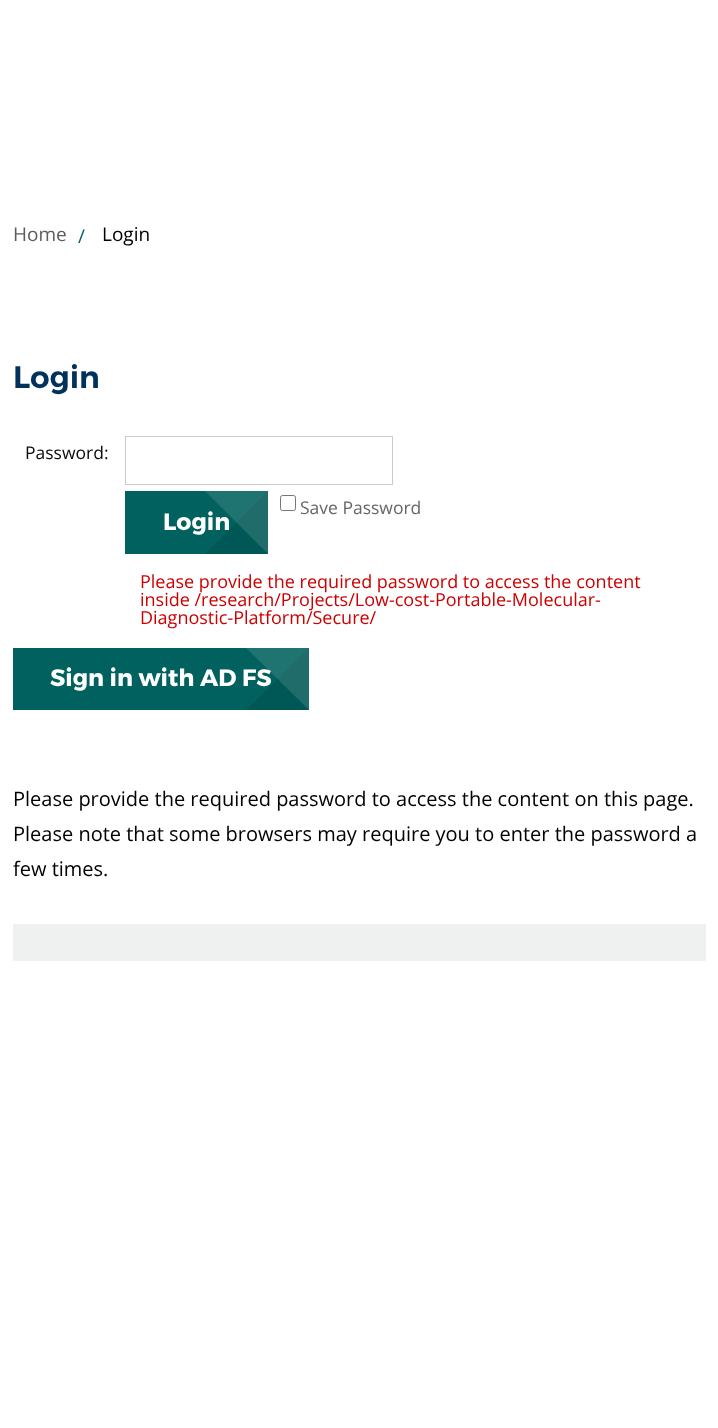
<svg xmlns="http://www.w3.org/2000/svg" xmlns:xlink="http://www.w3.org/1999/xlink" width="718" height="1428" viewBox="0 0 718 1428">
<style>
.cls-1{font:19px Open Sans;fill:#5c5c5c}
.cls-2{font:19px Open Sans;fill:#00615e}
.cls-3{font:19px Open Sans;fill:#000000}
.cls-4{font:600 31px Montserrat;fill:#00325b}
.cls-5{font:17.5px Open Sans;fill:#0a0a0a}
.cls-6{font:17.5px Open Sans;fill:#666666}
.cls-7{font:bold 23.75px Montserrat;fill:#ffffff}
.cls-8{font:18px Open Sans;fill:#cc0000}
.cls-9{font:20px Open Sans;fill:#000000}
</style>
<rect width="100%" height="100%" fill="#ffffff"/>
<rect fill="none" stroke="#cacaca" x="125.5" y="436.5" width="267" height="48"/>
<rect fill="none" stroke="#767676" x="280.5" y="495.5" width="15" height="15" rx="2"/>
<rect fill="#00615e" x="125" y="491" width="143" height="63"/>
<path fill="#005856" fill-rule="evenodd" d="M268 491L205 554H268Z"/>
<path fill="#ffffff" fill-opacity="0.12" fill-rule="evenodd" d="M268 554L205 491H268Z"/>
<rect fill="#00615e" x="13" y="648" width="296" height="62"/>
<path fill="#005856" fill-rule="evenodd" d="M309 648L246 710H309Z"/>
<path fill="#ffffff" fill-opacity="0.12" fill-rule="evenodd" d="M309 710L246 648H309Z"/>
<rect fill="#eff0f0" x="13" y="924" width="693" height="37"/>
<text class="cls-1" x="13" y="241">Home</text>
<text class="cls-2" x="78" y="243">/</text>
<text class="cls-3" x="102" y="241">Login</text>
<text class="cls-4" x="13" y="388">Login</text>
<text class="cls-5" x="25" y="459">Password:</text>
<text class="cls-6" x="300" y="514">Save Password</text>
<text class="cls-7" x="163" y="530">Login</text>
<text class="cls-8"><tspan x="140" y="588">Please provide the required password to access the content</tspan><tspan x="140" y="606">inside /research/Projects/Low-cost-Portable-Molecular-</tspan><tspan x="140" y="624">Diagnostic-Platform/Secure/</tspan></text>
<text class="cls-7" x="50" y="686">Sign in with AD FS</text>
<text class="cls-9"><tspan x="13" y="806">Please provide the required password to access the content on this page.</tspan><tspan x="13" y="841">Please note that some browsers may require you to enter the password a</tspan><tspan x="13" y="876">few times.</tspan></text>
</svg>
